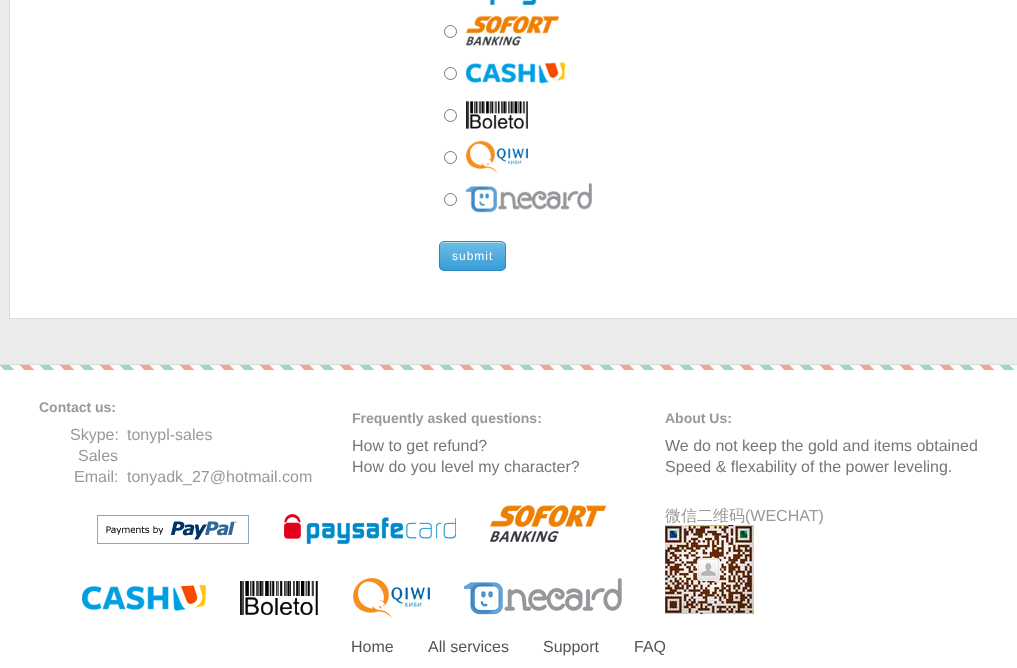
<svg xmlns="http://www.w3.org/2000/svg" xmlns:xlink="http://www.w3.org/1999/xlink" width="1017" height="668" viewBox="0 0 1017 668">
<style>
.cls-1{font:12px Liberation Sans;letter-spacing:1px;fill:#ffffff}
.cls-2{font:bold 14px Liberation Sans;fill:#999999}
.cls-3{font:16px Liberation Sans;fill:#999999}
.cls-4{font:16px Liberation Sans;fill:#777777}
.cls-5{font:500 16px WenQuanYi Zen Hei;fill:#999999}
.cls-6{font:16px Liberation Sans;fill:#555555}
</style>
<defs>
<clipPath id="clip1"><rect x="439" y="241" width="67" height="30" rx="5"/></clipPath>
<linearGradient id="g1" gradientUnits="userSpaceOnUse" x1="473" y1="242" x2="473" y2="270"><stop offset="0" stop-color="#6dbde4"/><stop offset="1" stop-color="#399dd8"/></linearGradient>
</defs>
<rect width="100%" height="100%" fill="#ebebeb"/>
<rect fill="#ffffff" stroke="#dbdbdb" x="9.5" y="-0.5" width="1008" height="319"/>
<image xlink:href="image0.png" x="489" y="0" width="48" height="5"/>
<circle fill="none" stroke="#767676" cx="450.5" cy="31.5" r="6"/>
<image xlink:href="image1.png" x="466" y="15" width="93" height="31"/>
<circle fill="none" stroke="#767676" cx="450.5" cy="73.5" r="6"/>
<image xlink:href="image2.png" x="466" y="62" width="99" height="22"/>
<circle fill="none" stroke="#767676" cx="450.5" cy="115.5" r="6"/>
<image xlink:href="image3.png" x="466" y="101" width="62" height="28"/>
<circle fill="none" stroke="#767676" cx="450.5" cy="157.5" r="6"/>
<image xlink:href="image4.png" x="466" y="141" width="62" height="32"/>
<circle fill="none" stroke="#767676" cx="450.5" cy="199.5" r="6"/>
<image xlink:href="image5.png" x="466" y="183" width="126" height="30"/>
<g clip-path="url(#clip1)">
<rect fill="url(#g1)" x="439" y="242" width="67" height="28"/>
</g>
<path fill="#b5ddf1" d="M444 243H501C503 243 505 245 505 247C505 240 497 242 492 242H454C448 242 440 240 440 247C440 245 442 243 444 243Z"/>
<rect fill="none" stroke="#2d88bf" x="439.5" y="241.5" width="66" height="29" rx="4.5"/>
<rect fill="#ffffff" x="0" y="370" width="1017" height="298"/>
<image xlink:href="image6.png" x="0" y="365" width="1017" height="5"/>
<rect fill="#d8dcdb" x="0" y="364" width="1017" height="1"/>
<image xlink:href="image7.png" x="97" y="515" width="152" height="29"/>
<image xlink:href="image8.png" x="284" y="514" width="172" height="30"/>
<image xlink:href="image9.png" x="490" y="505" width="116" height="37"/>
<image xlink:href="image10.png" x="82" y="585" width="124" height="26"/>
<image xlink:href="image11.png" x="240" y="581" width="78" height="34"/>
<image xlink:href="image12.png" x="353" y="578" width="77" height="40"/>
<image xlink:href="image13.png" x="464" y="578" width="158" height="37"/>
<image xlink:href="image14.png" x="665" y="525" width="89" height="89"/>
<text class="cls-1" x="452" y="260">submit</text>
<text class="cls-2" x="39" y="412">Contact us:</text>
<text class="cls-3" x="70" y="440">Skype:</text>
<text class="cls-3" x="127" y="440">tonypl-sales</text>
<text class="cls-3" x="78" y="461">Sales</text>
<text class="cls-3" x="74" y="482">Email:</text>
<text class="cls-3" x="127" y="482">tonyadk_27@hotmail.com</text>
<text class="cls-2" x="352" y="423">Frequently asked questions:</text>
<text class="cls-4"><tspan x="352" y="451">How to get refund?</tspan><tspan x="352" y="472">How do you level my character?</tspan></text>
<text class="cls-2" x="665" y="423">About Us:</text>
<text class="cls-4"><tspan x="665" y="451">We do not keep the gold and items obtained</tspan><tspan x="665" y="472">Speed &amp; flexability of the power leveling.</tspan></text>
<text class="cls-5" x="665" y="521">微信二维码</text>
<text class="cls-3" x="745" y="521">(WECHAT)</text>
<text class="cls-6" x="351" y="652">Home</text>
<text class="cls-6" x="428" y="652">All services</text>
<text class="cls-6" x="543" y="652">Support</text>
<text class="cls-6" x="634" y="652">FAQ</text>
</svg>
